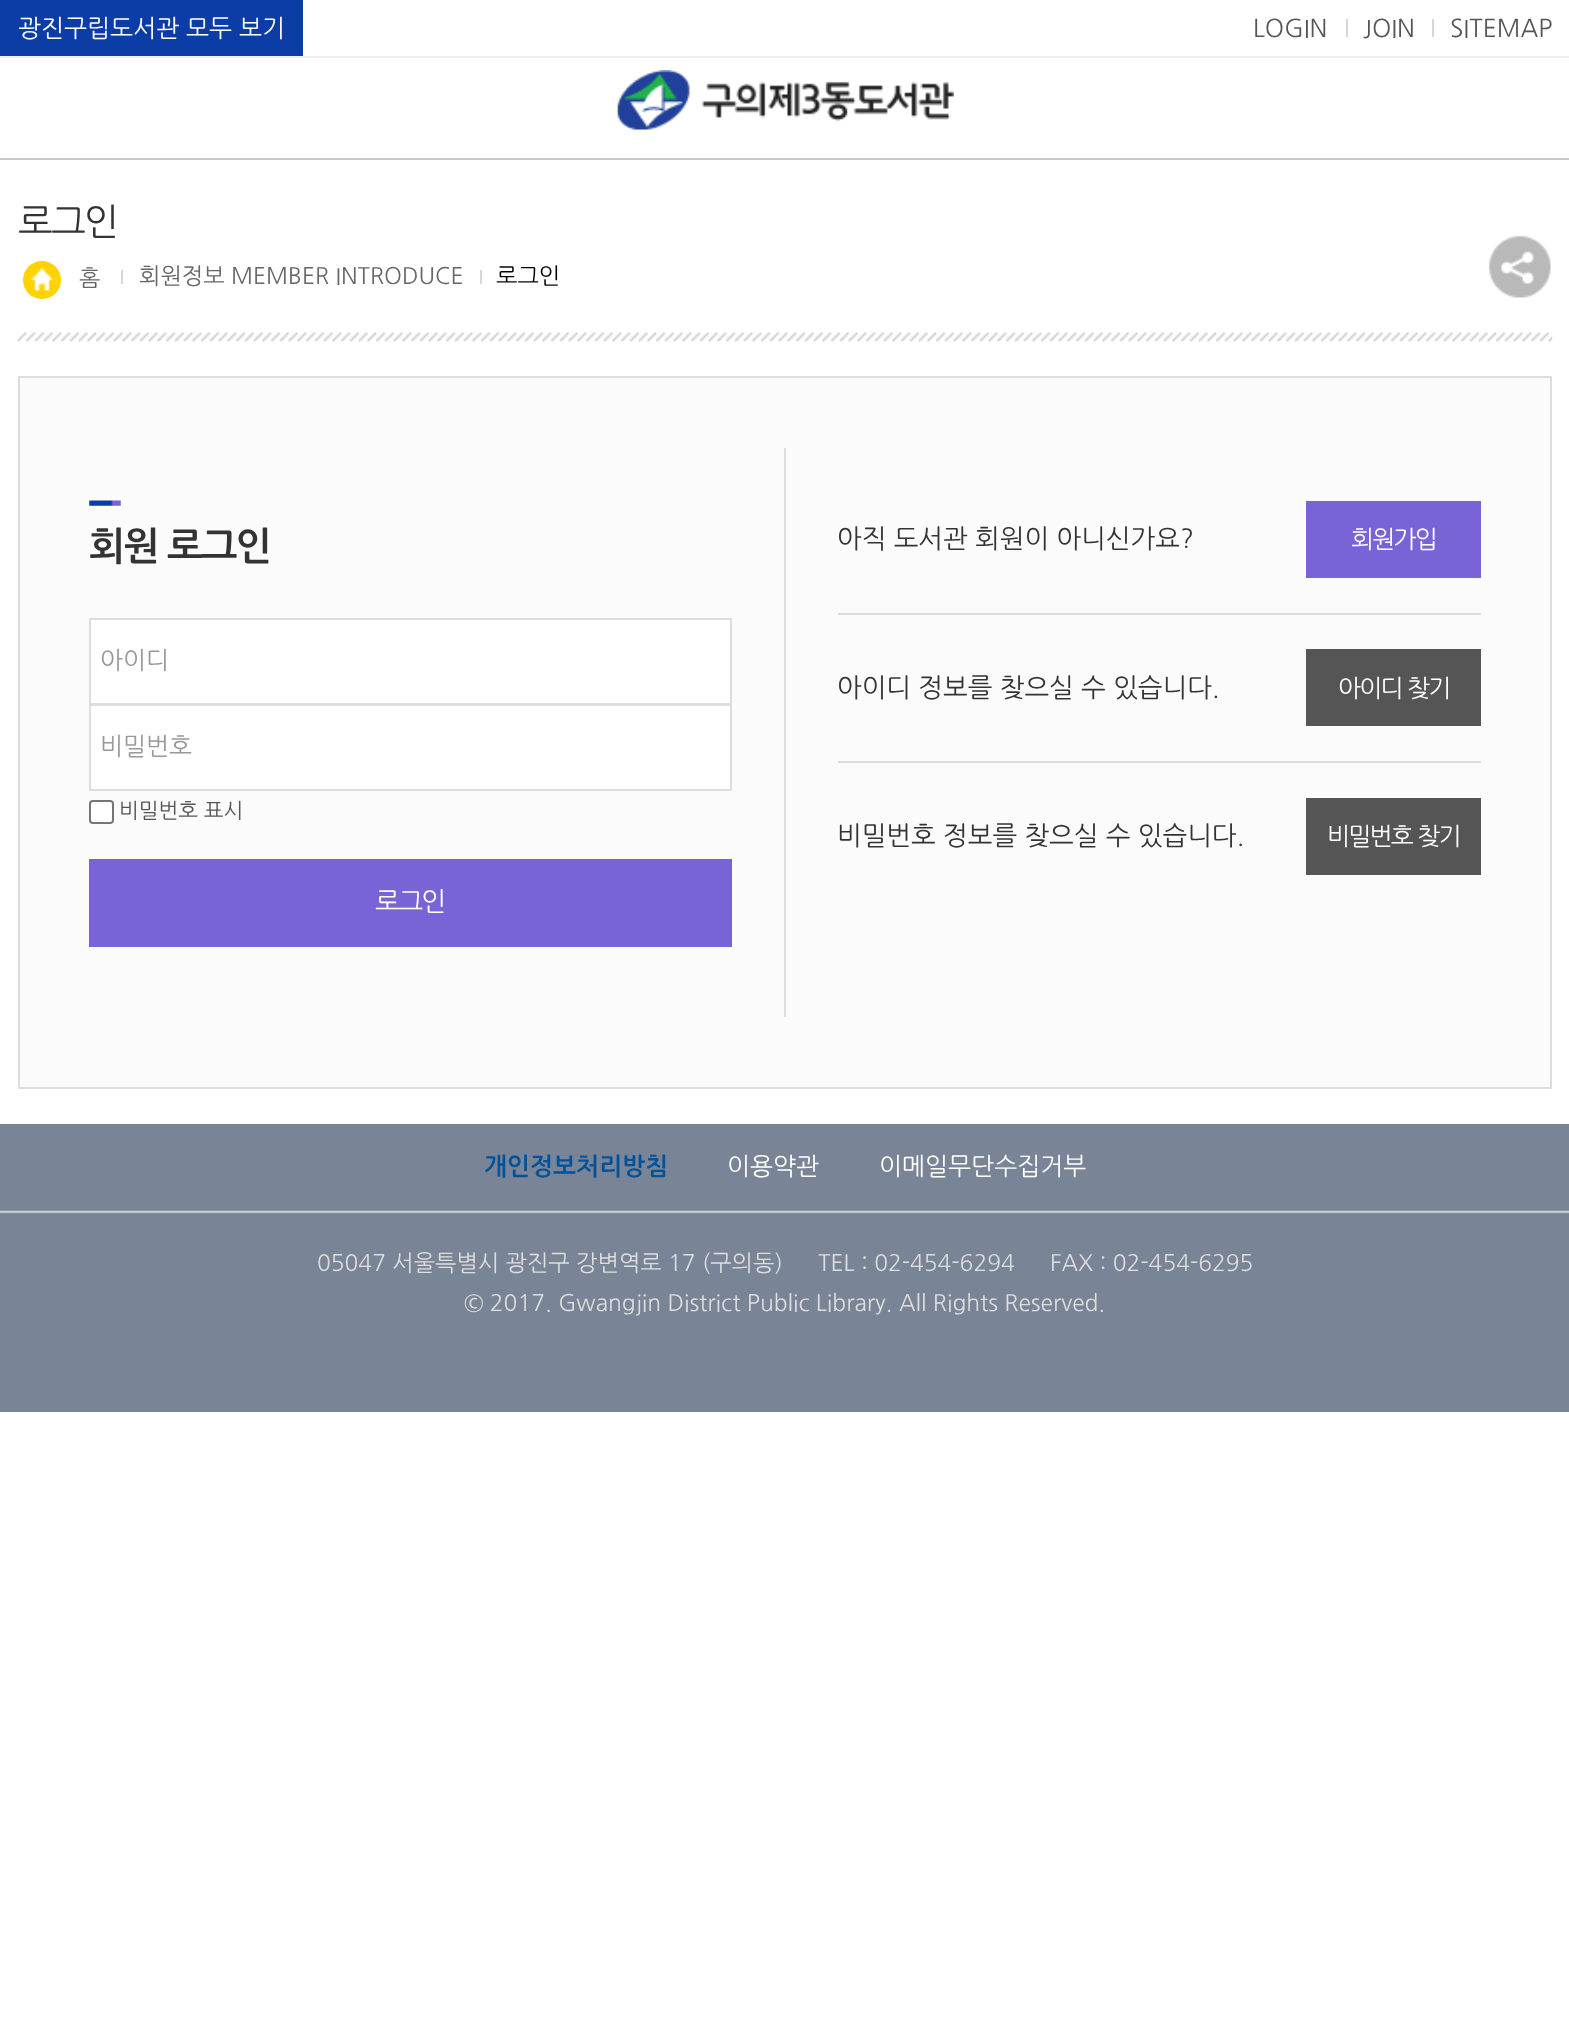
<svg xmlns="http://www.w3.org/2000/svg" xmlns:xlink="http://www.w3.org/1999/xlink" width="1569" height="2044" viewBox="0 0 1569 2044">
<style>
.cls-1{font:24.5px NanumGothic;fill:#ffffff}
.cls-2{font:24.5px NanumGothic;fill:#555555}
.cls-3{font:37px NanumGothic;letter-spacing:-1.75px;fill:#333333}
.cls-4{font:22.75px NanumGothic;fill:#666666}
.cls-5{font:22.75px NanumGothic;fill:#000000}
.cls-6{font:bold 38.5px NanumGothic;letter-spacing:-1.75px;fill:#333333}
.cls-7{font:24.5px NanumGothic;fill:#999999}
.cls-8{font:21px NanumGothic;fill:#555555}
.cls-9{font:26.5px NanumGothic;letter-spacing:-1.75px;fill:#ffffff}
.cls-10{font:26.25px NanumGothic;fill:#333333}
.cls-11{font:24.5px NanumGothic;letter-spacing:-1.75px;fill:#ffffff}
.cls-12{font:bold 24.5px NanumGothic;fill:#00539a}
.cls-13{font:22.75px NanumGothic;fill:#dedede}
</style>
<rect width="100%" height="100%" fill="#ffffff"/>
<image xlink:href="image0.png" x="0" y="56" width="1569" height="2"/>
<rect fill="#c9c9c9" x="0" y="158" width="1569" height="2"/>
<rect fill="#0c3da6" x="0" y="0" width="303" height="56"/>
<rect fill="#d7d7d7" x="1346" y="19" width="2" height="18"/>
<rect fill="#d7d7d7" x="1432" y="19" width="2" height="18"/>
<image xlink:href="image1.png" x="617" y="70" width="337" height="60"/>
<image xlink:href="image2.png" x="17" y="332" width="1536" height="10"/>
<circle fill="#fed300" cx="42" cy="280" r="19"/>
<image xlink:href="image3.png" x="31" y="267" width="22" height="24"/>
<rect fill="#d7d7d7" x="121" y="270" width="2" height="14"/>
<rect fill="#d7d7d7" x="480" y="270" width="2" height="14"/>
<image xlink:href="image4.png" x="1488" y="235" width="63" height="63"/>
<rect fill="#fbfbfb" stroke="#dddddd" stroke-width="2" x="19" y="377" width="1532" height="711"/>
<rect fill="#dddddd" x="784" y="448" width="2" height="569"/>
<image xlink:href="image5.png" x="89" y="500" width="32" height="6"/>
<rect fill="#ffffff" stroke="#dddddd" stroke-width="2" x="90" y="619" width="641" height="85"/>
<rect fill="#ffffff" stroke="#dddddd" stroke-width="2" x="90" y="705" width="641" height="85"/>
<rect fill="#ffffff" stroke="#767676" stroke-width="2" x="90" y="801" width="23" height="22" rx="3"/>
<rect fill="#7963d6" x="89" y="859" width="643" height="88"/>
<rect fill="#7963d6" x="1306" y="501" width="175" height="77"/>
<rect fill="#dddddd" x="838" y="613" width="643" height="2"/>
<rect fill="#555555" x="1306" y="649" width="175" height="77"/>
<rect fill="#dddddd" x="838" y="761" width="643" height="2"/>
<rect fill="#555555" x="1306" y="798" width="175" height="77"/>
<rect fill="#798596" x="0" y="1124" width="1569" height="288"/>
<image xlink:href="image6.png" x="0" y="1123" width="1569" height="91"/>
<text class="cls-1" x="18" y="37">광진구립도서관 모두 보기</text>
<text class="cls-2" x="1253" y="37">LOGIN</text>
<text class="cls-2" x="1363" y="37">JOIN</text>
<text class="cls-2" x="1450" y="37">SITEMAP</text>
<text class="cls-3" x="18" y="235">로그인</text>
<text class="cls-4" x="79" y="286">홈</text>
<text class="cls-4" x="139" y="284">회원정보 MEMBER INTRODUCE</text>
<text class="cls-5" x="496" y="284">로그인</text>
<text class="cls-6" x="89" y="560">회원 로그인</text>
<text class="cls-7" x="100" y="669">아이디</text>
<text class="cls-7" x="100" y="755">비밀번호</text>
<text class="cls-8" x="119" y="818">비밀번호 표시</text>
<text class="cls-9" x="375" y="911">로그인</text>
<text class="cls-10" x="837" y="548">아직 도서관 회원이 아니신가요?</text>
<text class="cls-11" x="1351" y="548">회원가입</text>
<text class="cls-10" x="837" y="697">아이디 정보를 찾으실 수 있습니다.</text>
<text class="cls-11" x="1338" y="697">아이디 찾기</text>
<text class="cls-10" x="837" y="845">비밀번호 정보를 찾으실 수 있습니다.</text>
<text class="cls-11" x="1327" y="845">비밀번호 찾기</text>
<text class="cls-12" x="484" y="1175">개인정보처리방침</text>
<text class="cls-1" x="727" y="1175">이용약관</text>
<text class="cls-1" x="879" y="1175">이메일무단수집거부</text>
<text class="cls-13" x="317" y="1271">05047 서울특별시 광진구 강변역로 17 (구의동)</text>
<text class="cls-13" x="818" y="1271">TEL : 02-454-6294</text>
<text class="cls-13" x="1050" y="1271">FAX : 02-454-6295</text>
<text class="cls-13" x="464" y="1311">© 2017. Gwangjin District Public Library. All Rights Reserved.</text>
</svg>
